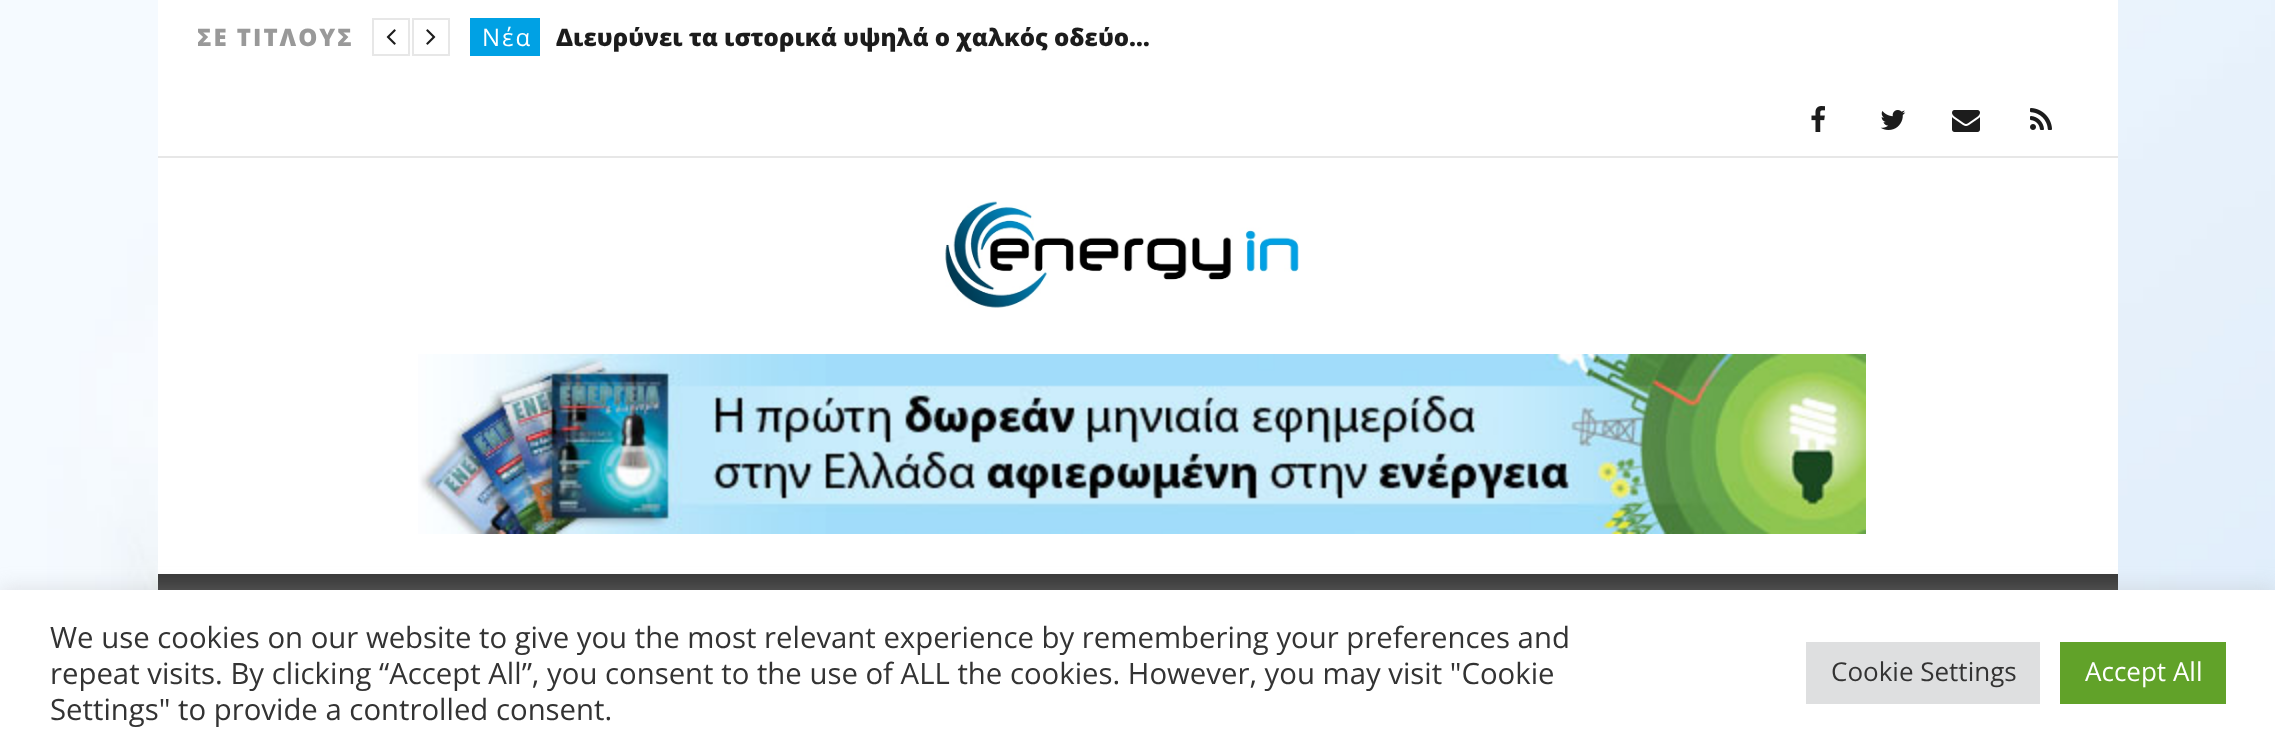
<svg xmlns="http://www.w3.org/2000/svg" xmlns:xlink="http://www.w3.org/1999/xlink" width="2275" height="753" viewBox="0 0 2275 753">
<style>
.cls-1{font:800 24px Open Sans;letter-spacing:2px;fill:#999999}
.cls-2{font:24px Open Sans;letter-spacing:2px;fill:#ffffff}
.cls-3{font:800 24px Open Sans;fill:#1c1c1c}
.cls-4{font:29.33px Open Sans;fill:#333333}
.cls-5{font:26px Open Sans;fill:#333333}
.cls-6{font:26px Open Sans;fill:#ffffff}
</style>
<defs>
<clipPath id="clip1"><rect x="198" y="0" width="1880" height="70"/></clipPath>
</defs>
<rect width="100%" height="100%" fill="#ffffff"/>
<image xlink:href="image0.png" x="0" y="0" width="2275" height="590"/>
<rect fill="#ffffff" x="158" y="0" width="1960" height="574"/>
<rect fill="#e7e7e7" x="158" y="156" width="1960" height="2"/>
<rect fill="none" stroke="#e7e7e7" stroke-width="2" x="373" y="19" width="36" height="36"/>
<image xlink:href="image1.png" x="386" y="29" width="10" height="16"/>
<rect fill="none" stroke="#e7e7e7" stroke-width="2" x="413" y="19" width="36" height="36"/>
<image xlink:href="image2.png" x="426" y="29" width="10" height="16"/>
<rect fill="#00a1e4" x="470" y="18" width="70" height="38"/>
<image xlink:href="image3.png" x="1811" y="106" width="14" height="26"/>
<image xlink:href="image4.png" x="1880" y="110" width="26" height="20"/>
<image xlink:href="image5.png" x="1952" y="110" width="28" height="22"/>
<image xlink:href="image6.png" x="2030" y="108" width="22" height="22"/>
<image xlink:href="image7.png" x="945" y="201" width="354" height="107"/>
<image xlink:href="image8.png" x="418" y="354" width="1448" height="180"/>
<rect fill="#393939" x="158" y="574" width="1960" height="16"/>
<rect fill="#acabab" fill-opacity="0.3" filter="blur(10px)" x="0" y="588" width="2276" height="164"/>
<rect fill="#ffffff" x="0" y="590" width="2275" height="163"/>
<rect fill="#dedfe0" x="1806" y="642" width="234" height="62"/>
<rect fill="#61a229" x="2060" y="642" width="166" height="62"/>
<g clip-path="url(#clip1)">
<text class="cls-1" x="197" y="46">ΣΕ ΤΙΤΛΟΥΣ</text>
</g>
<text class="cls-2" x="482" y="46">Νέα</text>
<text class="cls-3" x="556" y="46">Διευρύνει τα ιστορικά υψηλά ο χαλκός οδεύο…</text>
<text class="cls-4"><tspan x="50" y="648">We use cookies on our website to give you the most relevant experience by remembering your preferences and</tspan><tspan x="50" y="684">repeat visits. By clicking “Accept All”, you consent to the use of ALL the cookies. However, you may visit "Cookie</tspan><tspan x="50" y="720">Settings" to provide a controlled consent.</tspan></text>
<text class="cls-5" x="1831" y="681">Cookie Settings</text>
<text class="cls-6" x="2085" y="681">Accept All</text>
</svg>
